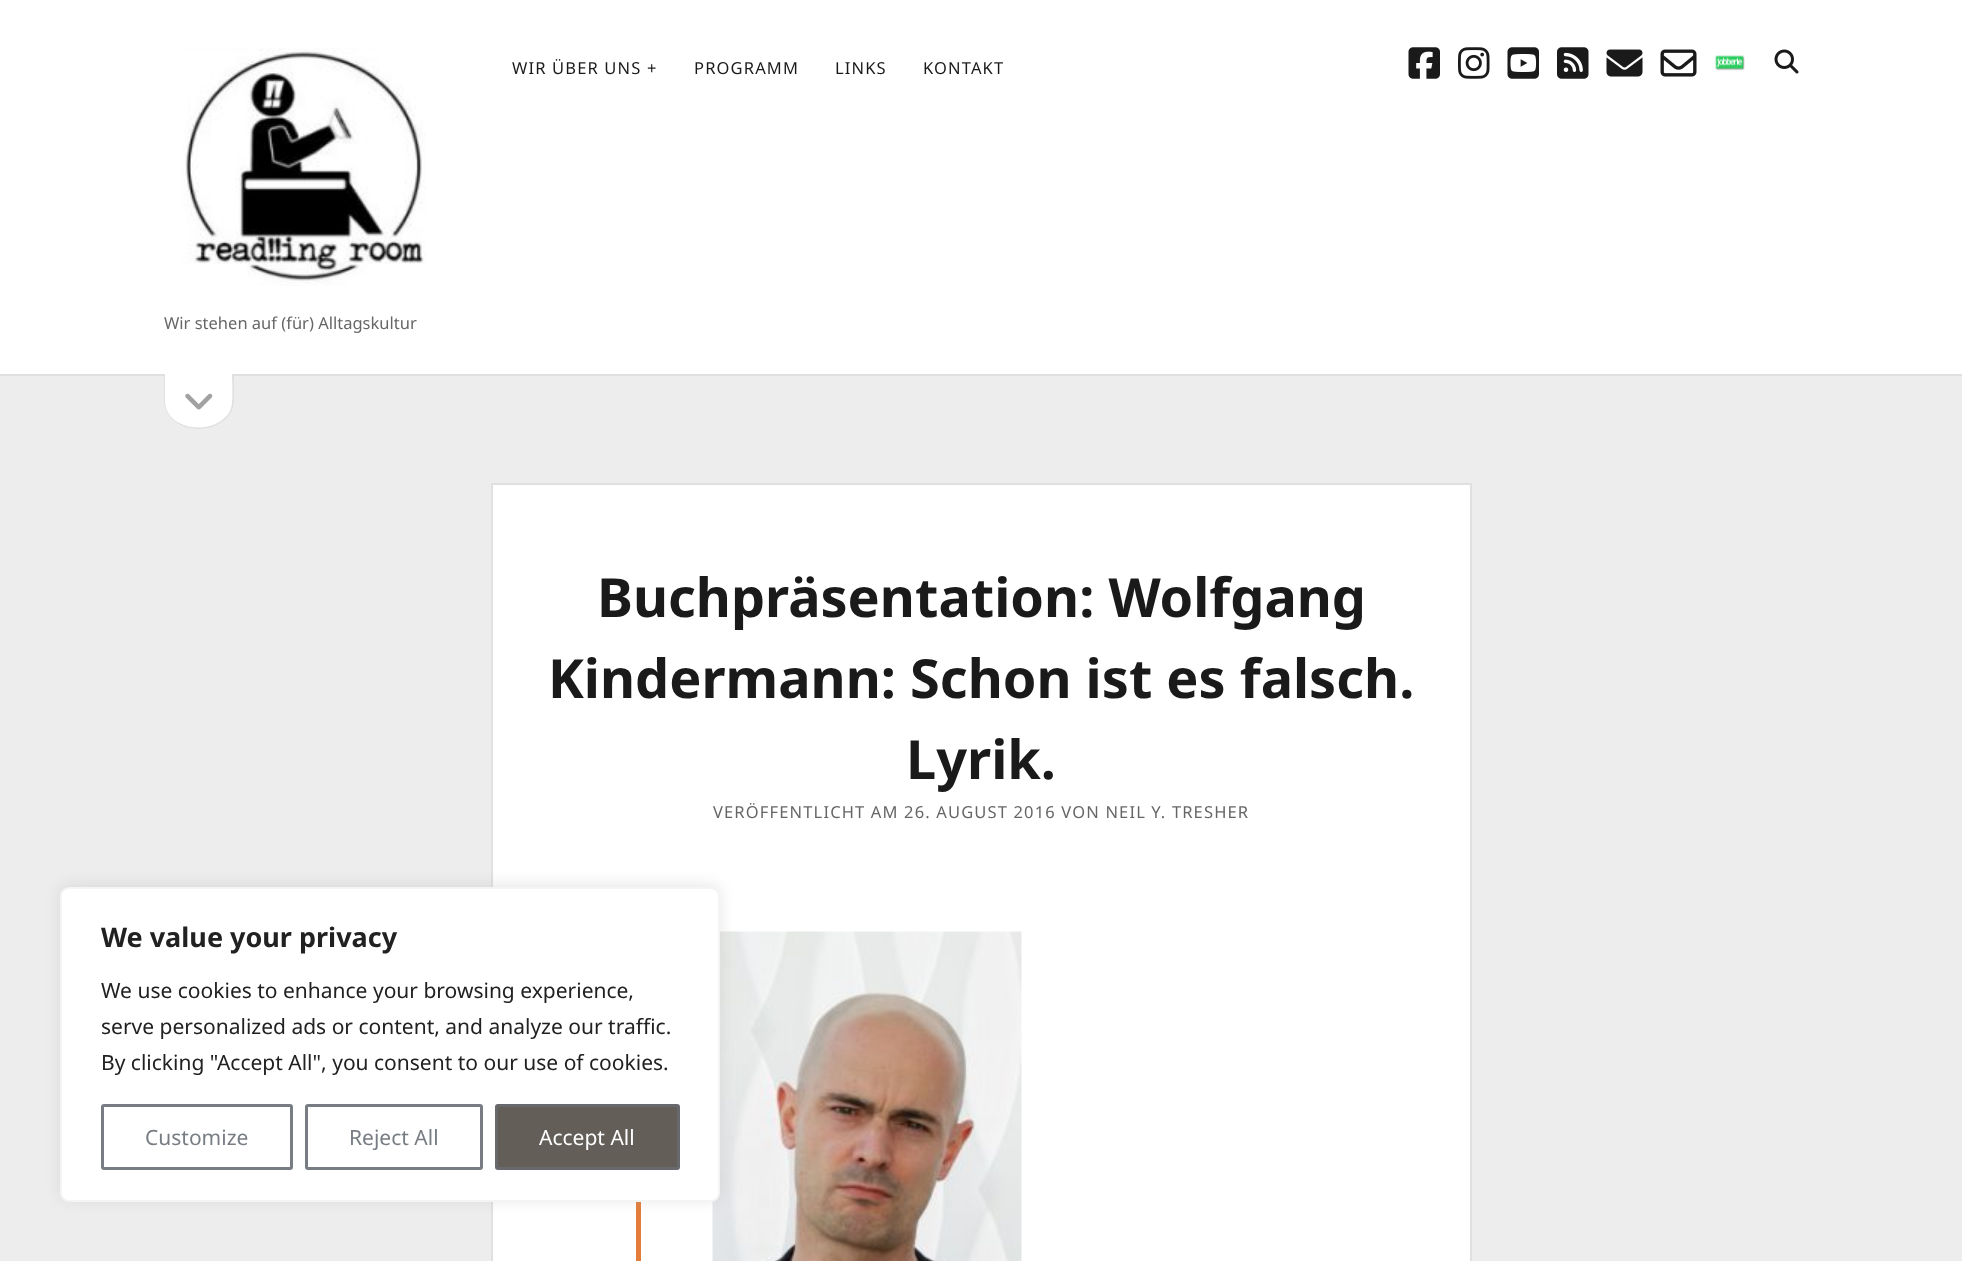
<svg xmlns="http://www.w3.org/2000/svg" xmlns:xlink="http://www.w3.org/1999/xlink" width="1962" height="1261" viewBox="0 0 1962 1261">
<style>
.cls-1{font:16.5px Noto Sans;letter-spacing:1.15px;fill:#1a1a1a}
.cls-2{font:16.5px Noto Sans;fill:#666666}
.cls-3{font:bold 54px Noto Sans;fill:#1a1a1a}
.cls-4{font:16.5px Noto Sans;letter-spacing:1.15px;fill:#666666}
.cls-5{font:bold 27px Noto Sans;fill:#212121}
.cls-6{font:21px Noto Sans;fill:#212121}
.cls-7{font:21px Noto Sans;fill:#787d84}
.cls-8{font:21px Noto Sans;fill:#ffffff}
</style>
<rect width="100%" height="100%" fill="#ededed"/>
<rect fill="#ffffff" x="0" y="0" width="1962" height="374"/>
<rect fill="#e0e0e0" x="0" y="374" width="1962" height="2"/>
<image xlink:href="image0.png" x="1408" y="47" width="32" height="32"/>
<image xlink:href="image1.png" x="1458" y="47" width="32" height="32"/>
<image xlink:href="image2.png" x="1507" y="47" width="32" height="32"/>
<image xlink:href="image3.png" x="1557" y="47" width="32" height="32"/>
<image xlink:href="image4.png" x="1606" y="49" width="37" height="28"/>
<image xlink:href="image5.png" x="1660" y="49" width="37" height="28"/>
<image xlink:href="image6.png" x="1715" y="55" width="30" height="16"/>
<image xlink:href="image7.png" x="1774" y="49" width="25" height="25"/>
<image xlink:href="image8.png" x="182" y="48" width="244" height="238"/>
<path fill="#ffffff" d="M164 374H234V401C234 417 218 429 199 429C179 429 164 417 164 401Z"/>
<path fill="#e0e0e0" fill-rule="evenodd" d="M164 374H234V401C234 417 218 429 199 429C179 429 164 417 164 401ZM165 374H232C232 383 234 404 230 411C216 437 165 431 165 401Z"/>
<image xlink:href="image9.png" x="185" y="393" width="28" height="17"/>
<rect fill="#ffffff" stroke="#e0e0e0" stroke-width="2" x="492" y="484" width="979" height="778"/>
<rect fill="#e37d39" x="636" y="1202" width="5" height="59"/>
<image xlink:href="image10.png" x="712" y="931" width="310" height="330"/>
<rect fill="#acabab" fill-opacity="0.3" filter="blur(7.5px)" x="60" y="885" width="660" height="315" rx="9"/>
<rect fill="#ffffff" stroke="#f4f4f4" stroke-width="2" x="61" y="888" width="658" height="313" rx="8"/>
<rect fill="none" stroke="#787d84" stroke-width="3" x="102.5" y="1105.5" width="189" height="63" rx="1.5"/>
<rect fill="none" stroke="#787d84" stroke-width="3" x="306.5" y="1105.5" width="175" height="63" rx="1.5"/>
<rect fill="#635e58" stroke="#67696c" stroke-width="3" x="496.5" y="1105.5" width="182" height="63" rx="1.5"/>
<text class="cls-1" x="512" y="74">WIR ÜBER UNS +</text>
<text class="cls-1" x="694" y="74">PROGRAMM</text>
<text class="cls-1" x="835" y="74">LINKS</text>
<text class="cls-1" x="923" y="74">KONTAKT</text>
<text class="cls-2" x="164" y="329">Wir stehen auf (für) Alltagskultur</text>
<text class="cls-3" x="597" y="617">Buchpräsentation: Wolfgang</text>
<text class="cls-3" x="548" y="698">Kindermann: Schon ist es falsch.</text>
<text class="cls-3" x="906" y="779">Lyrik.</text>
<text class="cls-4" x="713" y="818">VERÖFFENTLICHT AM 26. AUGUST 2016 VON NEIL Y. TRESHER</text>
<text class="cls-5" x="101" y="947">We value your privacy</text>
<text class="cls-6"><tspan x="101" y="998">We use cookies to enhance your browsing experience,</tspan><tspan x="101" y="1034">serve personalized ads or content, and analyze our traffic.</tspan><tspan x="101" y="1070">By clicking "Accept All", you consent to our use of cookies.</tspan></text>
<text class="cls-7" x="145" y="1145">Customize</text>
<text class="cls-7" x="349" y="1145">Reject All</text>
<text class="cls-8" x="539" y="1145">Accept All</text>
</svg>
